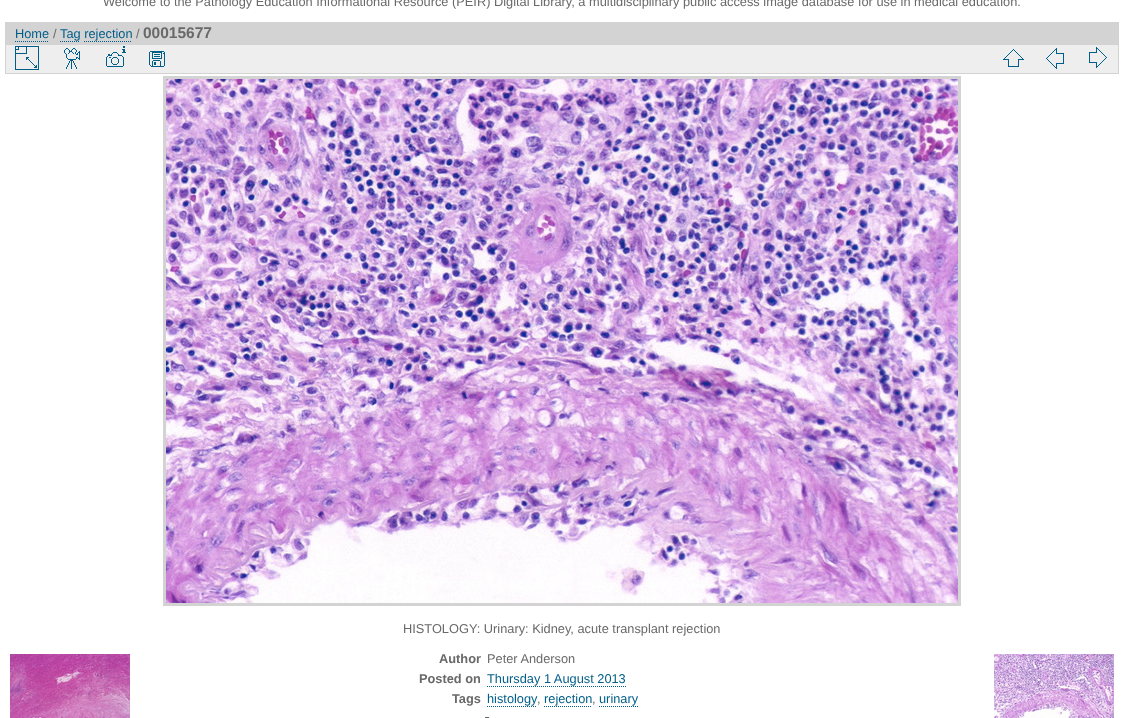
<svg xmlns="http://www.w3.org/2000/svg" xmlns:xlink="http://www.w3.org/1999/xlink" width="1124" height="718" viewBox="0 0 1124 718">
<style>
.cls-1{font:12.8px Liberation Sans;fill:#696969}
.cls-2{font:12.8px Liberation Sans;fill:#005e89}
.cls-3{font:bold 15.5px Liberation Sans;fill:#696969}
.cls-4{font:bold 12.8px Liberation Sans;fill:#696969}
</style>
<rect width="100%" height="100%" fill="#ffffff"/>
<rect fill="#d3d3d3" x="5" y="22" width="1114" height="22"/>
<path fill="none" stroke="#005e89" stroke-dasharray="1 1" d="M15 41.5H49"/>
<path fill="none" stroke="#005e89" stroke-dasharray="1 1" d="M60 41.5H80"/>
<path fill="none" stroke="#005e89" stroke-dasharray="1 1" d="M84 41.5H132"/>
<rect fill="#eeeeee" stroke="#d3d3d3" x="5.5" y="44.5" width="1113" height="29"/>
<image xlink:href="image0.png" x="15" y="46" width="24" height="24"/>
<image xlink:href="image1.png" x="64" y="48" width="16" height="21"/>
<image xlink:href="image2.png" x="106" y="46" width="20" height="21"/>
<image xlink:href="image3.png" x="149" y="51" width="16" height="16"/>
<image xlink:href="image4.png" x="1003" y="49" width="21" height="18"/>
<image xlink:href="image5.png" x="1046" y="48" width="18" height="21"/>
<image xlink:href="image6.png" x="1089" y="47" width="18" height="21"/>
<rect fill="none" stroke="#d3d3d3" stroke-width="3" x="164.5" y="77.5" width="795" height="527"/>
<image xlink:href="image7.png" x="166" y="79" width="792" height="524"/>
<path fill="none" stroke="#005e89" stroke-dasharray="1 1" d="M487 686.5H626"/>
<path fill="none" stroke="#005e89" stroke-dasharray="1 1" d="M487 706.5H537"/>
<path fill="none" stroke="#005e89" stroke-dasharray="1 1" d="M544 706.5H592"/>
<path fill="none" stroke="#005e89" stroke-dasharray="1 1" d="M599 706.5H638"/>
<rect fill="#696969" x="485" y="717" width="4" height="1"/>
<image xlink:href="image8.png" x="10" y="654" width="120" height="64"/>
<image xlink:href="image9.png" x="994" y="654" width="120" height="64"/>
<text class="cls-1" x="103" y="6">Welcome to the Pathology Education Informational Resource (PEIR) Digital Library, a multidisciplinary public access image database for use in medical education.</text>
<text class="cls-2" x="15" y="38">Home</text>
<text class="cls-1" x="53" y="38">/</text>
<text class="cls-2" x="60" y="38">Tag rejection</text>
<text class="cls-1" x="136" y="38">/</text>
<text class="cls-3" x="143" y="38">00015677</text>
<text class="cls-1" x="403" y="633">HISTOLOGY: Urinary: Kidney, acute transplant rejection</text>
<text class="cls-4" x="439" y="663">Author</text>
<text class="cls-1" x="487" y="663">Peter Anderson</text>
<text class="cls-4" x="419" y="683">Posted on</text>
<text class="cls-2" x="487" y="683">Thursday 1 August 2013</text>
<text class="cls-4" x="452" y="703">Tags</text>
<text class="cls-2" x="487" y="703">histology</text>
<text class="cls-2" x="544" y="703">rejection</text>
<text class="cls-2" x="599" y="703">urinary</text>
<text class="cls-1" x="537" y="703">,</text>
<text class="cls-1" x="592" y="703">,</text>
</svg>
